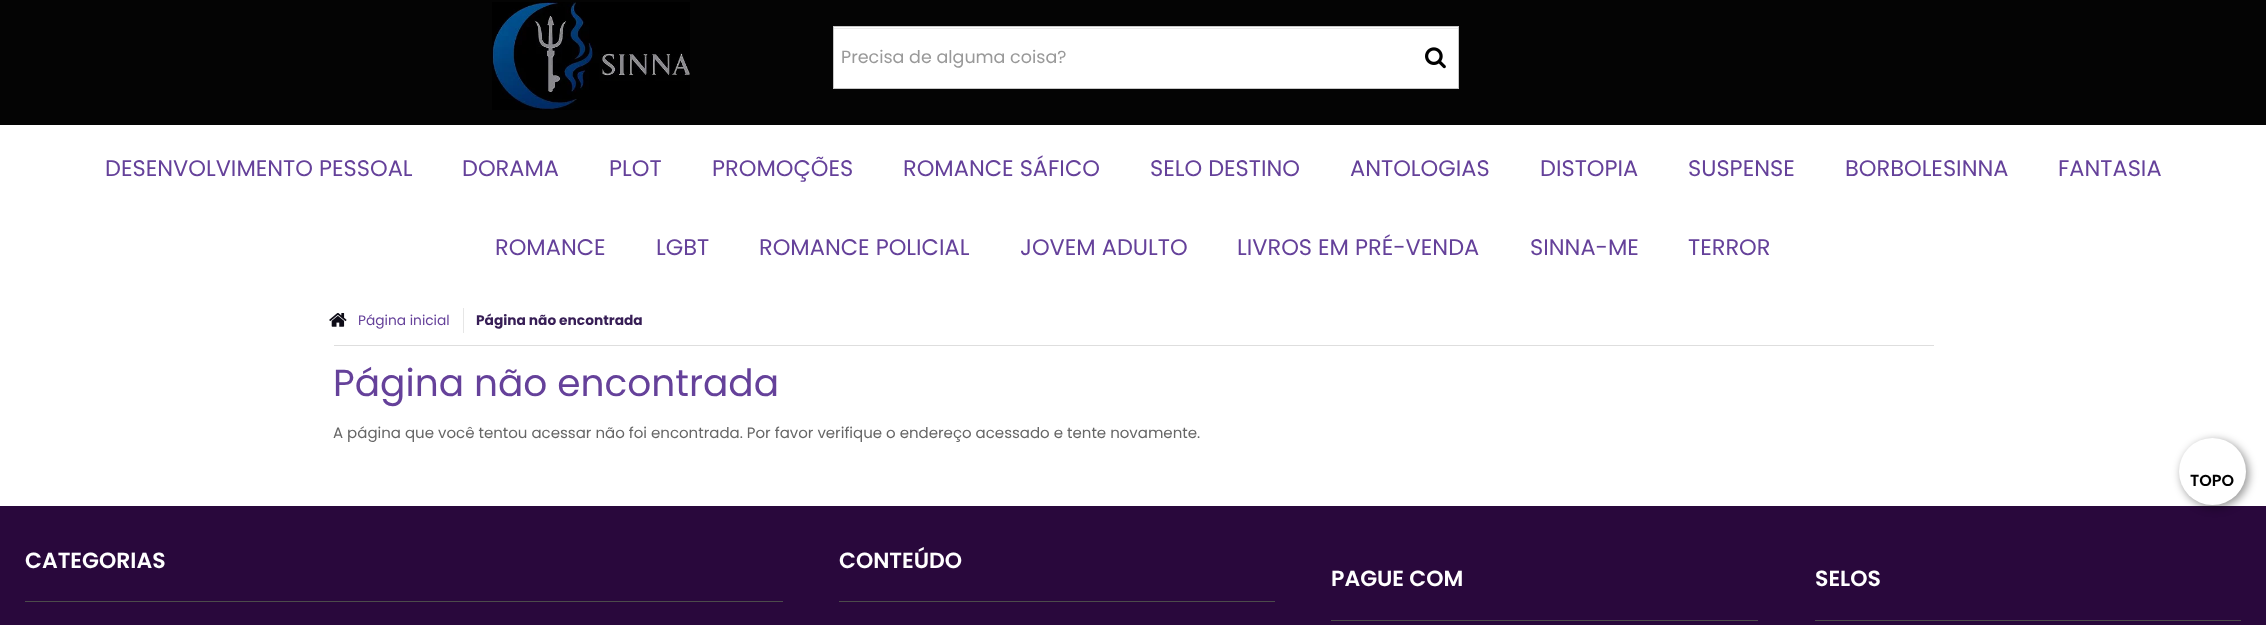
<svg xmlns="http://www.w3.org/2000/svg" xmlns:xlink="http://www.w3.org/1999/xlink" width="2266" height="625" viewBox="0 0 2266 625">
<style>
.cls-1{font:17.5px Poppins;fill:#999999}
.cls-2{font:22.5px Poppins;fill:#65419a}
.cls-3{font:13.75px Poppins;fill:#65419a}
.cls-4{font:bold 13.75px Poppins;fill:#371e56}
.cls-5{font:37.5px Poppins;fill:#65419a}
.cls-6{font:15px Poppins;fill:#666666}
.cls-7{font:600 22px Poppins;fill:#ffffff}
.cls-8{font:600 16px Poppins;fill:#000000}
</style>
<rect width="100%" height="100%" fill="#ffffff"/>
<rect fill="#040404" x="0" y="0" width="2266" height="125"/>
<image xlink:href="image0.png" x="492" y="2" width="198" height="108"/>
<rect fill="#ffffff" x="834" y="27" width="624" height="61"/>
<rect fill="#ececec" x="834" y="28" width="624" height="1"/>
<rect fill="none" stroke="#c7c7c7" x="833.5" y="26.5" width="625" height="62"/>
<image xlink:href="image1.png" x="1425" y="47" width="21" height="22"/>
<rect fill="#dedede" x="334" y="345" width="1600" height="1"/>
<image xlink:href="image2.png" x="329" y="313" width="18" height="14"/>
<rect fill="#e6e6e6" x="463" y="308" width="1" height="25"/>
<rect fill="#29083c" x="0" y="506" width="2266" height="119"/>
<rect fill="#4c4b4b" x="25" y="601" width="758" height="1"/>
<rect fill="#4c4b4b" x="839" y="601" width="436" height="1"/>
<rect fill="#4c4b4b" x="1331" y="620" width="427" height="1"/>
<rect fill="#4c4b4b" x="1815" y="620" width="426" height="1"/>
<rect fill="#000000" fill-opacity="0.4" filter="blur(4px)" x="2181" y="440" width="68" height="68" rx="34"/>
<circle fill="#ffffff" cx="2212.5" cy="471.5" r="33.5"/>
<text class="cls-1" x="841" y="63">Precisa de alguma coisa?</text>
<text class="cls-2" x="105" y="176">DESENVOLVIMENTO PESSOAL</text>
<text class="cls-2" x="462" y="176">DORAMA</text>
<text class="cls-2" x="609" y="176">PLOT</text>
<text class="cls-2" x="712" y="176">PROMOÇÕES</text>
<text class="cls-2" x="903" y="176">ROMANCE SÁFICO</text>
<text class="cls-2" x="1150" y="176">SELO DESTINO</text>
<text class="cls-2" x="1350" y="176">ANTOLOGIAS</text>
<text class="cls-2" x="1540" y="176">DISTOPIA</text>
<text class="cls-2" x="1688" y="176">SUSPENSE</text>
<text class="cls-2" x="1845" y="176">BORBOLESINNA</text>
<text class="cls-2" x="2058" y="176">FANTASIA</text>
<text class="cls-2" x="495" y="255">ROMANCE</text>
<text class="cls-2" x="656" y="255">LGBT</text>
<text class="cls-2" x="759" y="255">ROMANCE POLICIAL</text>
<text class="cls-2" x="1020" y="255">JOVEM ADULTO</text>
<text class="cls-2" x="1237" y="255">LIVROS EM PRÉ-VENDA</text>
<text class="cls-2" x="1530" y="255">SINNA-ME</text>
<text class="cls-2" x="1688" y="255">TERROR</text>
<text class="cls-3" x="358" y="325">Página inicial</text>
<text class="cls-4" x="476" y="325">Página não encontrada</text>
<text class="cls-5" x="333" y="396">Página não encontrada</text>
<text class="cls-6" x="333" y="438">A página que você tentou acessar não foi encontrada. Por favor verifique o endereço acessado e tente novamente.</text>
<text class="cls-7" x="25" y="568">CATEGORIAS</text>
<text class="cls-7" x="839" y="568">CONTEÚDO</text>
<text class="cls-7" x="1331" y="586">PAGUE COM</text>
<text class="cls-7" x="1815" y="586">SELOS</text>
<text class="cls-8" x="2190" y="486">TOPO</text>
</svg>
